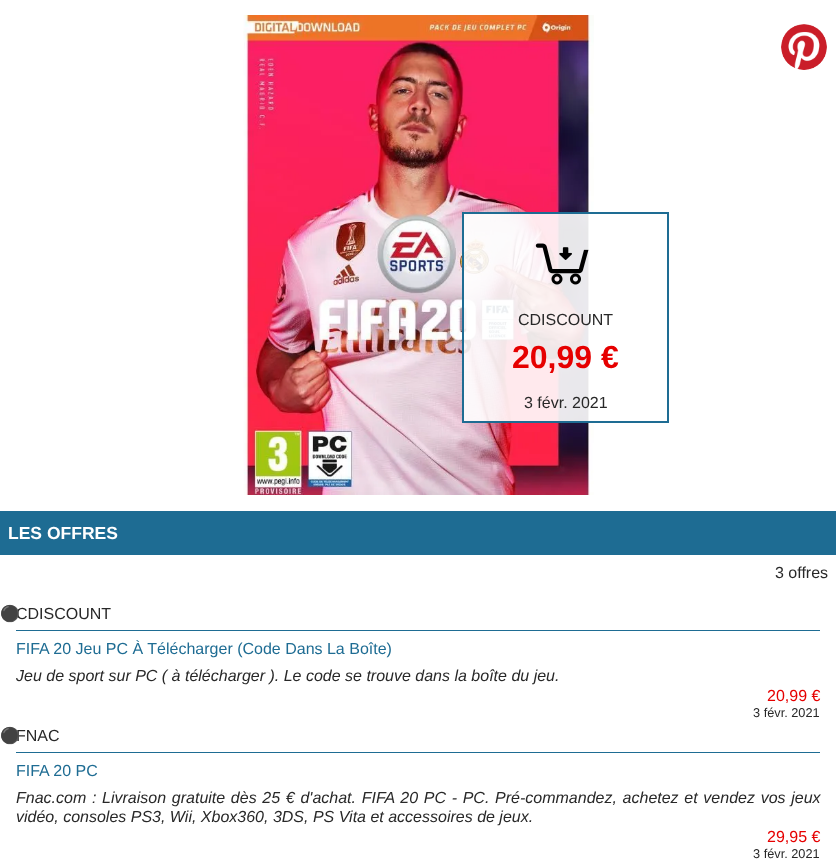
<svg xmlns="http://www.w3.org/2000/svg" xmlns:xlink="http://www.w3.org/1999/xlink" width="836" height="865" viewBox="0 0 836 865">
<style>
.cls-1{font:16px Liberation Sans;fill:#282828}
.cls-2{font:bold 32px Liberation Sans;fill:#e60000}
.cls-3{font:bold 17.5px Liberation Sans;fill:#ffffff}
.cls-4{font:16px Noto Color Emoji;fill:#1e6c93}
.cls-5{font:16px Liberation Sans;fill:#1e6c93}
.cls-6{font:italic 16px Liberation Sans;fill:#282828}
.cls-7{font:16px Liberation Sans;fill:#e60000}
.cls-8{font:12.75px Liberation Sans;fill:#282828}
</style>
<rect width="100%" height="100%" fill="#ffffff"/>
<image xlink:href="image0.png" x="243" y="15" width="351" height="480"/>
<image xlink:href="image1.png" x="781" y="24" width="46" height="46"/>
<circle fill="none" stroke="#ffffff" cx="804" cy="47" r="23.5"/>
<rect fill="#ffffff" fill-opacity="0.9" x="464" y="214" width="130" height="207"/>
<rect fill="none" stroke="#1e6c93" stroke-width="2" x="463" y="213" width="205" height="209"/>
<image xlink:href="image2.png" x="535" y="243" width="54" height="42"/>
<rect fill="#1e6c93" x="0" y="511" width="836" height="44"/>
<rect fill="#1e6c93" x="16" y="630" width="804" height="1"/>
<rect fill="#1e6c93" x="16" y="752" width="804" height="1"/>
<text class="cls-1" x="518" y="325">CDISCOUNT</text>
<text class="cls-2" x="512" y="368">20,99 €</text>
<text class="cls-1" x="524" y="408">3 févr. 2021</text>
<text class="cls-3" x="8" y="539">LES OFFRES</text>
<text class="cls-1" x="775" y="578">3 offres</text>
<text class="cls-1" x="16" y="619">CDISCOUNT</text>
<text class="cls-4" x="0" y="619">⚫</text>
<text class="cls-5" x="16" y="654">FIFA 20 Jeu PC À Télécharger (Code Dans La Boîte)</text>
<text class="cls-6" x="16" y="681">Jeu de sport sur PC ( à télécharger ). Le code se trouve dans la boîte du jeu.</text>
<text class="cls-7" x="767" y="701">20,99 €</text>
<text class="cls-8" x="753" y="717">3 févr. 2021</text>
<text class="cls-1" x="16" y="741">FNAC</text>
<text class="cls-4" x="0" y="741">⚫</text>
<text class="cls-5" x="16" y="776">FIFA 20 PC</text>
<text class="cls-6"><tspan x="16" y="803" word-spacing="1.25">Fnac.com : Livraison gratuite dès 25 € d'achat. FIFA 20 PC - PC. Pré-commandez, achetez et vendez vos jeux</tspan><tspan x="16" y="822">vidéo, consoles PS3, Wii, Xbox360, 3DS, PS Vita et accessoires de jeux.</tspan></text>
<text class="cls-7" x="767" y="842">29,95 €</text>
<text class="cls-8" x="753" y="858">3 févr. 2021</text>
</svg>
